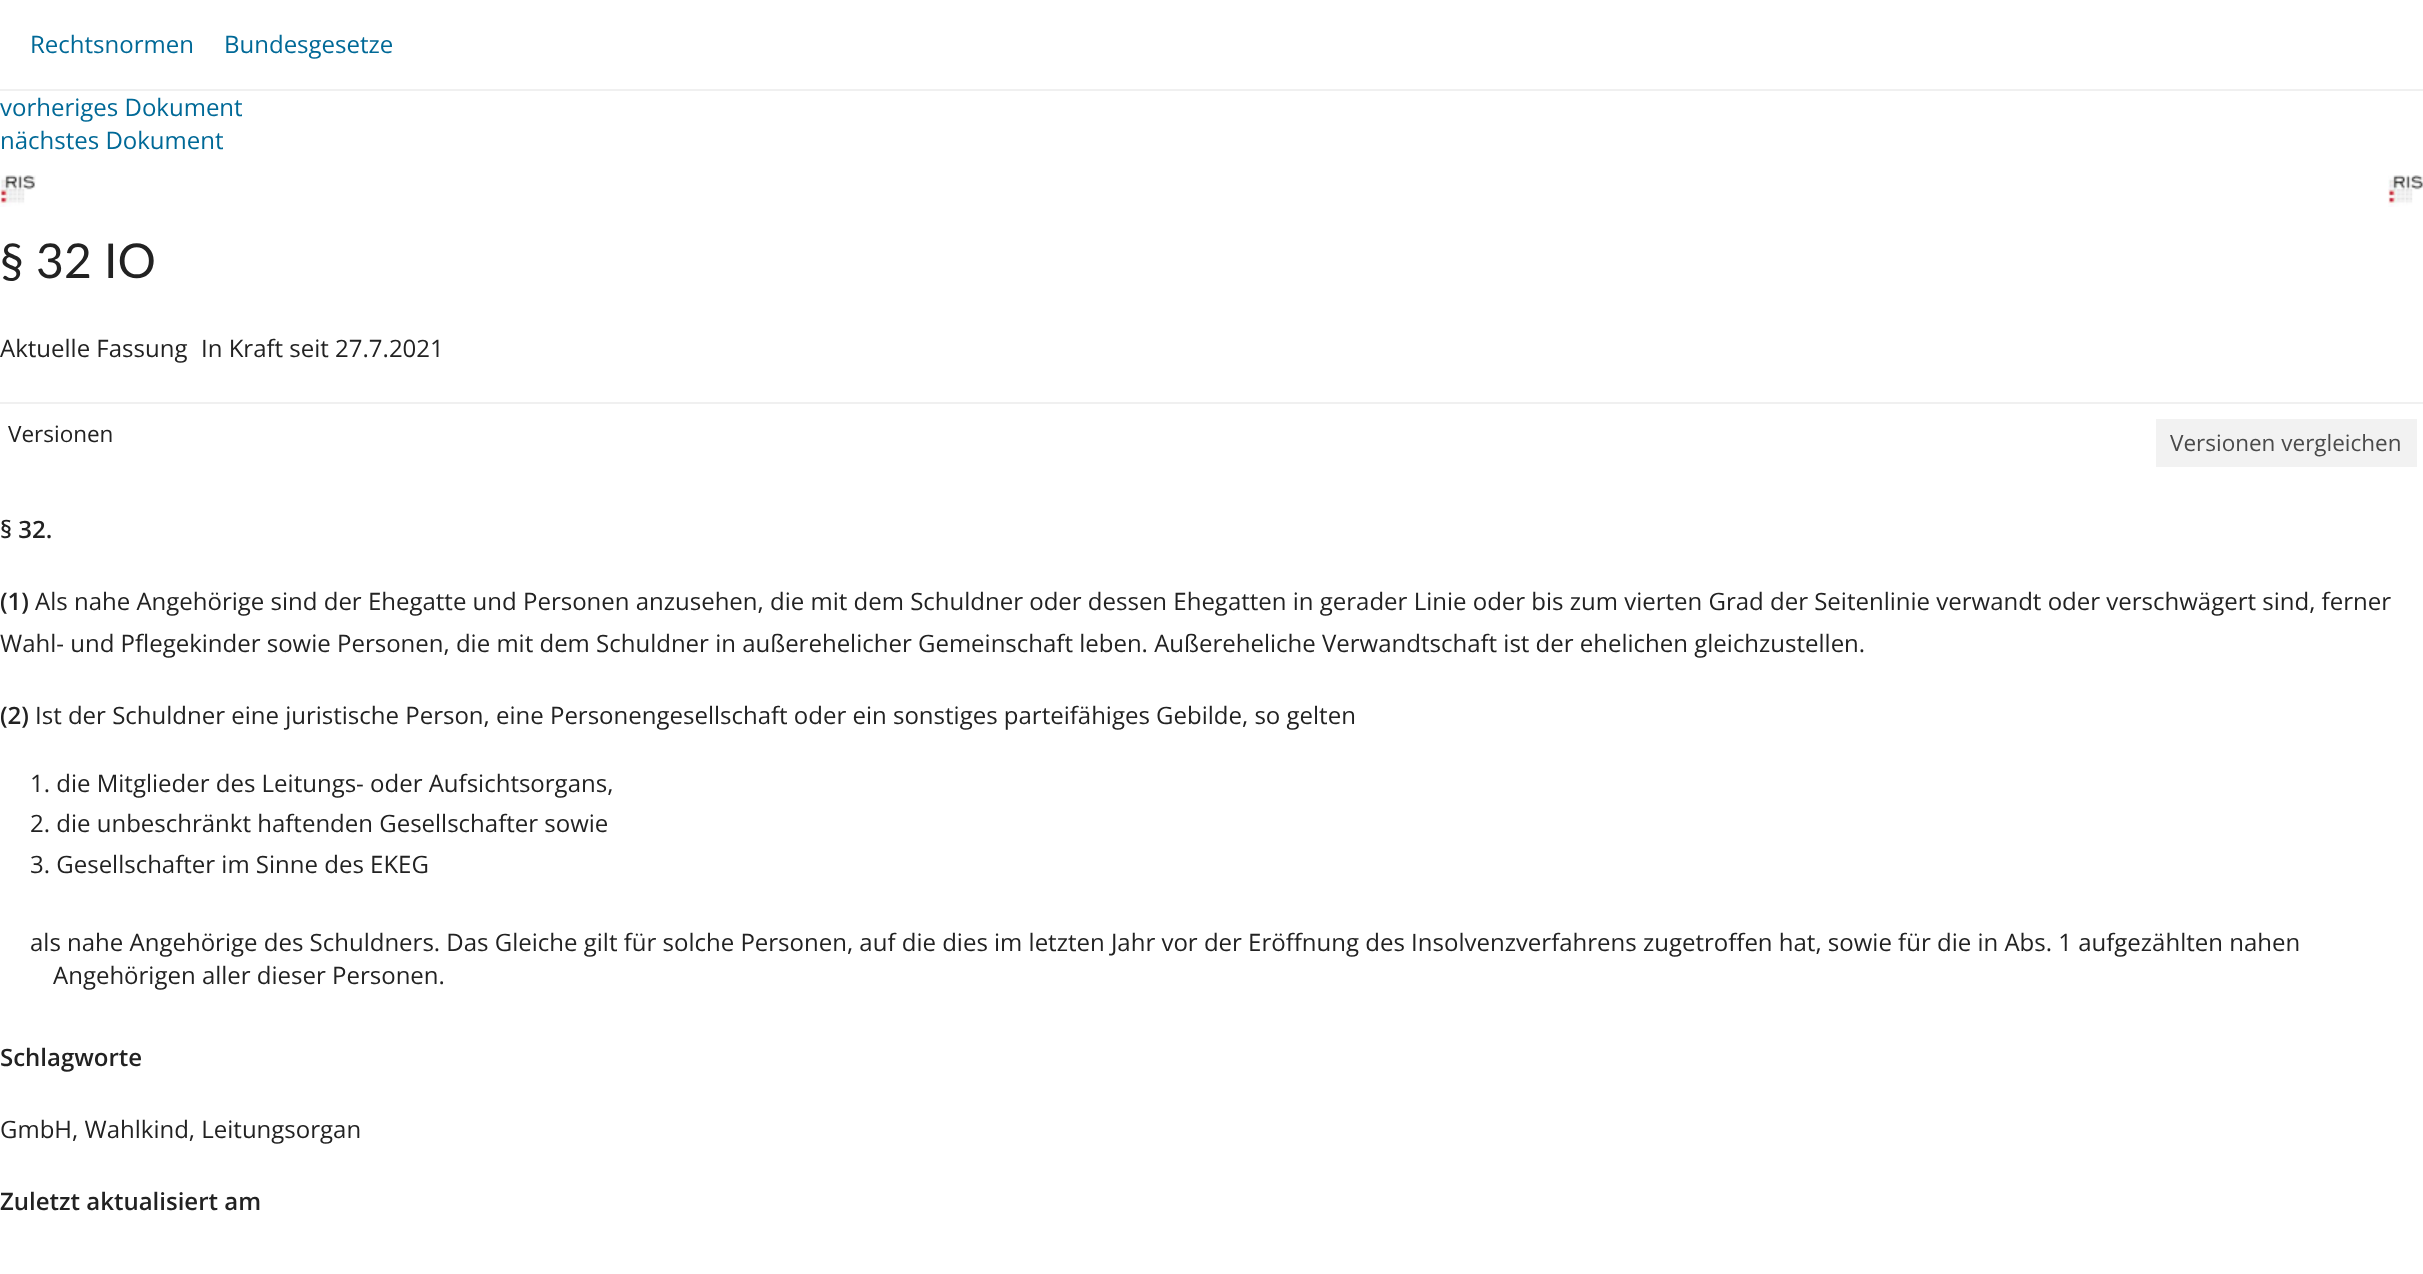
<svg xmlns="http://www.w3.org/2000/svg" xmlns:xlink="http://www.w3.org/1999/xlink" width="2423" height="1274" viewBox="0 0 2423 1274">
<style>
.cls-1{font:24px Open Sans;fill:#006997}
.cls-2{font:48px Lato;fill:#222222}
.cls-3{font:24px Open Sans;fill:#222222}
.cls-4{font:22.5px Open Sans;fill:#222222}
.cls-5{font:22.5px Open Sans;fill:#4a4a4a}
.cls-6{font:600 24px Open Sans;fill:#222222}
</style>
<rect width="100%" height="100%" fill="#ffffff"/>
<rect fill="#f0f0f0" x="0" y="89" width="2423" height="2"/>
<image xlink:href="image0.png" x="2388" y="175" width="35" height="32"/>
<image xlink:href="image1.png" x="0" y="175" width="36" height="32"/>
<rect fill="#f0f0f0" x="0" y="402" width="2423" height="2"/>
<rect fill="#f2f2f2" x="2156" y="419" width="261" height="48"/>
<text class="cls-1" x="30" y="53">Rechtsnormen</text>
<text class="cls-1" x="224" y="53">Bundesgesetze</text>
<text class="cls-1"><tspan x="0" y="116">vorheriges Dokument</tspan><tspan x="0" y="149">nächstes Dokument</tspan></text>
<text class="cls-2" x="0" y="278">§ 32 IO</text>
<text class="cls-3" x="0" y="357">Aktuelle Fassung</text>
<text class="cls-3" x="201" y="357">In Kraft seit 27.7.2021</text>
<text class="cls-4" x="8" y="442">Versionen</text>
<text class="cls-5" x="2170" y="451">Versionen vergleichen</text>
<text class="cls-6" x="0" y="538">§ 32.</text>
<text class="cls-6" x="0" y="610">(1)</text>
<text class="cls-3" x="35" y="610">Als nahe Angehörige sind der Ehegatte und Personen anzusehen, die mit dem Schuldner oder dessen Ehegatten in gerader Linie oder bis zum vierten Grad der Seitenlinie verwandt oder verschwägert sind, ferner</text>
<text class="cls-3" x="0" y="652">Wahl- und Pflegekinder sowie Personen, die mit dem Schuldner in außerehelicher Gemeinschaft leben. Außereheliche Verwandtschaft ist der ehelichen gleichzustellen.</text>
<text class="cls-6" x="0" y="724">(2)</text>
<text class="cls-3" x="35" y="724">Ist der Schuldner eine juristische Person, eine Personengesellschaft oder ein sonstiges parteifähiges Gebilde, so gelten</text>
<text class="cls-3"><tspan x="30" y="792">1. die Mitglieder des Leitungs- oder Aufsichtsorgans,</tspan><tspan x="30" y="832">2. die unbeschränkt haftenden Gesellschafter sowie</tspan><tspan x="30" y="873">3. Gesellschafter im Sinne des EKEG</tspan></text>
<text class="cls-3" x="30" y="951">als nahe Angehörige des Schuldners. Das Gleiche gilt für solche Personen, auf die dies im letzten Jahr vor der Eröffnung des Insolvenzverfahrens zugetroffen hat, sowie für die in Abs. 1 aufgezählten nahen</text>
<text class="cls-3" x="53" y="984">Angehörigen aller dieser Personen.</text>
<text class="cls-6" x="0" y="1066">Schlagworte</text>
<text class="cls-3" x="0" y="1138">GmbH, Wahlkind, Leitungsorgan</text>
<text class="cls-6" x="0" y="1210">Zuletzt aktualisiert am</text>
</svg>
